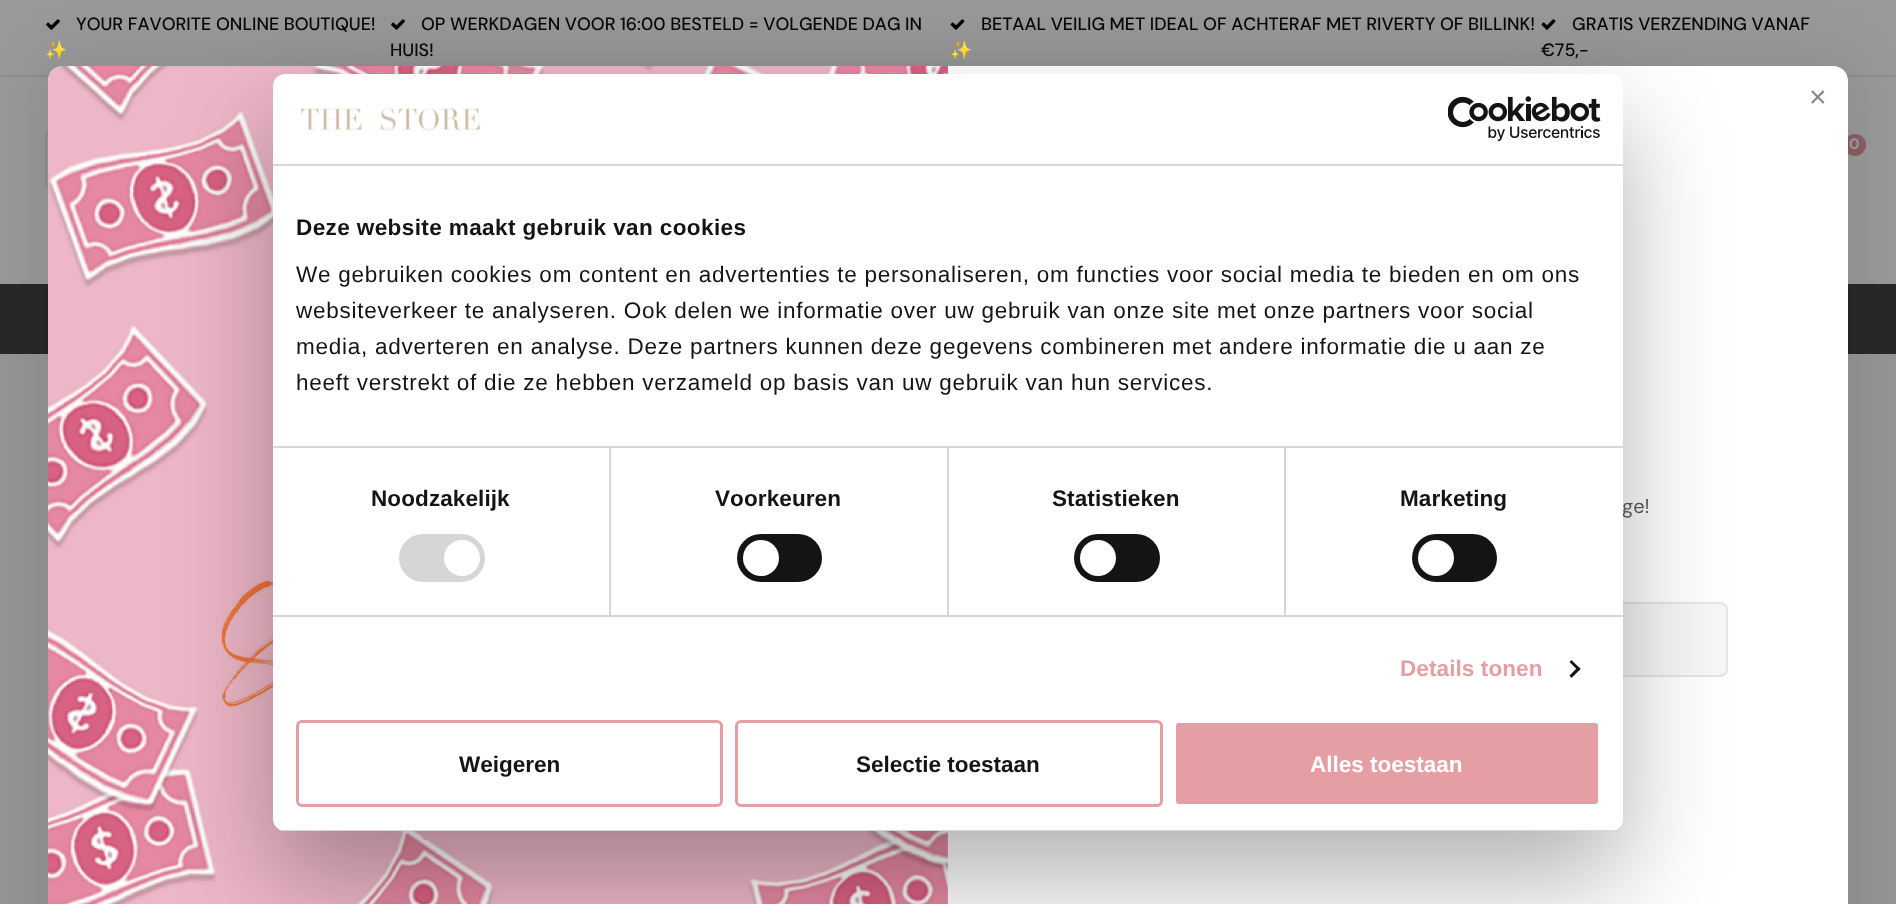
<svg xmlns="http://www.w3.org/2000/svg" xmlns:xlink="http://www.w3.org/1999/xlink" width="1896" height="904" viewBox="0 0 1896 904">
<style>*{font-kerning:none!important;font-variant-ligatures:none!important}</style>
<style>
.cls-1{font:500 17.85px DM Sans;fill:#080607}
.cls-2{font:17.85px Noto Color Emoji;fill:#080607}
.cls-3{font:bold 15px DM Sans;fill:#999999}
.cls-4{font:bold 22.5px Liberation Sans;letter-spacing:0.4px;fill:#141414}
.cls-5{font:22.5px Liberation Sans;letter-spacing:0.75px;fill:#141414}
.cls-6{font:bold 22.5px Liberation Sans;letter-spacing:0.1px;fill:#141414}
.cls-7{font:bold 22.5px Liberation Sans;letter-spacing:0.1px;fill:#e59fa4}
.cls-8{font:bold 22.5px Liberation Sans;fill:#141414}
.cls-9{font:bold 22.5px Liberation Sans;fill:#ffffff}
.cls-10{font:30px Liberation Sans;fill:#888888}
.cls-11{font:20px DM Sans;fill:#515151}
</style>
<defs>
<clipPath id="clip1"><rect x="273" y="74" width="1350" height="757" rx="12"/></clipPath>
</defs>
<rect width="100%" height="100%" fill="#999999"/>
<rect fill="#8e8e8e" x="0" y="75" width="1896" height="2"/>
<image xlink:href="image0.png" x="46" y="19" width="14" height="11"/>
<image xlink:href="image0.png" x="391" y="19" width="14" height="11"/>
<image xlink:href="image1.png" x="950" y="19" width="15" height="11"/>
<image xlink:href="image1.png" x="1541" y="19" width="15" height="11"/>
<rect fill="none" stroke="#8e8e8e" stroke-width="2" x="46" y="130" width="298" height="58" rx="7"/>
<circle fill="#895f63" cx="1855" cy="145" r="11"/>
<rect fill="#282829" x="0" y="284" width="1896" height="70"/>
<rect fill="#959595" x="0" y="354" width="1896" height="550"/>
<rect fill="#000000" fill-opacity="0.08" filter="blur(30px)" x="36" y="57" width="1824" height="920" rx="27"/>
<path fill="#ffffff" d="M63 66H1833C1841.5 66 1848 72.5 1848 81V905H48V81C48 72.5 54.5 66 63 66Z"/>
<image xlink:href="image4.png" x="48" y="66" width="900" height="838"/>
<rect fill="#f7f7f7" x="1068" y="602" width="660" height="75" rx="8"/>
<rect fill="none" stroke="#000000" stroke-opacity="0.07" stroke-width="2" x="1069" y="603" width="658" height="73" rx="7"/>
<rect fill="#000000" fill-opacity="0.3" filter="blur(51px)" x="273" y="122" width="1350" height="757" rx="12"/>
<rect fill="#ffffff" x="273" y="74" width="1350" height="757" rx="12"/>
<rect fill="#d6d6d6" x="273" y="164" width="1350" height="2"/>
<image xlink:href="image2.png" x="300" y="107" width="180" height="24"/>
<image xlink:href="image3.png" x="1448" y="96" width="153" height="45"/>
<rect fill="#d6d6d6" x="609" y="447" width="2" height="168"/>
<rect fill="#d6d6d6" x="947" y="447" width="2" height="168"/>
<rect fill="#d6d6d6" x="1284" y="447" width="2" height="168"/>
<rect fill="#d6d6d6" x="273" y="446" width="1350" height="2"/>
<rect fill="#d6d6d6" x="273" y="615" width="1350" height="2"/>
<rect fill="#e5e5e5" x="273" y="446" width="1" height="2"/>
<rect fill="#d6d6d6" x="399" y="534" width="86" height="48" rx="24"/>
<circle fill="#ffffff" cx="462" cy="558" r="18"/>
<rect fill="#141414" x="737" y="534" width="85" height="48" rx="24"/>
<circle fill="#ffffff" cx="761" cy="558" r="18"/>
<rect fill="#141414" x="1074" y="534" width="86" height="48" rx="24"/>
<circle fill="#ffffff" cx="1098" cy="558" r="18"/>
<rect fill="#141414" x="1412" y="534" width="85" height="48" rx="24"/>
<circle fill="#ffffff" cx="1436" cy="558" r="18"/>
<path fill="#141414" d="M1571.5 660L1580.5 669L1578.5 671L1569.5 662Z"/>
<path fill="#141414" d="M1578.5 666.5L1580.5 669L1571.5 678L1569.5 675.5Z"/>
<g clip-path="url(#clip1)">
<rect fill="#d6d6d6" x="273" y="830" width="1350" height="1"/>
</g>
<rect fill="none" stroke="#e59fa4" stroke-width="3" x="297.5" y="721.5" width="424" height="84" rx="4.5"/>
<rect fill="none" stroke="#e59fa4" stroke-width="3" x="736.5" y="721.5" width="425" height="84" rx="4.5"/>
<rect fill="#e59fa4" stroke="#ffffff" stroke-width="3" x="1174.5" y="721.5" width="425" height="84" rx="4.5"/>
<text class="cls-1" x="76" y="30">YOUR FAVORITE</text>
<text class="cls-1" x="216" y="30">ONLINE BOUTIQUE!</text>
<text class="cls-2" x="45" y="56">✨</text>
<text class="cls-1" x="421" y="30">OP WERKDAGEN VOOR 16:00 BESTELD = VOLGENDE DAG</text>
<text class="cls-1" x="905" y="30">IN</text>
<text class="cls-1" x="390" y="56">HUIS!</text>
<text class="cls-1" x="981" y="30">BETAAL VEILIG MET IDEAL OF ACHTERAF MET RIVERTY OF BILLINK!</text>
<text class="cls-2" x="950" y="56">✨</text>
<text class="cls-1" x="1572" y="30">GRATIS VERZENDING VANAF</text>
<text class="cls-1" x="1541" y="56">€75,-</text>
<text class="cls-3" x="1849" y="149">0</text>
<text class="cls-4" x="296" y="235">Deze website maakt gebruik van cookies</text>
<text class="cls-5"><tspan x="296" y="282">We gebruiken cookies om content en advertenties te personaliseren, om functies voor social media te bieden en om ons</tspan><tspan x="296" y="318">websiteverkeer te analyseren. Ook delen we informatie over uw gebruik van onze site met onze partners voor social</tspan><tspan x="296" y="354">media, adverteren en analyse. Deze partners kunnen deze gegevens combineren met andere informatie die u aan ze</tspan><tspan x="296" y="390">heeft verstrekt of die ze hebben verzameld op basis van uw gebruik van hun services.</tspan></text>
<text class="cls-6" x="371" y="506">Noodzakelijk</text>
<text class="cls-6" x="715" y="506">Voorkeuren</text>
<text class="cls-6" x="1052" y="506">Statistieken</text>
<text class="cls-6" x="1400" y="506">Marketing</text>
<text class="cls-7" x="1400" y="676">Details tonen</text>
<text class="cls-8" x="459" y="772">Weigeren</text>
<text class="cls-8" x="856" y="772">Selectie toestaan</text>
<text class="cls-9" x="1310" y="772">Alles toestaan</text>
<text class="cls-10" x="1809" y="107">×</text>
<text class="cls-11" x="1622" y="513">ge!</text>
</svg>
